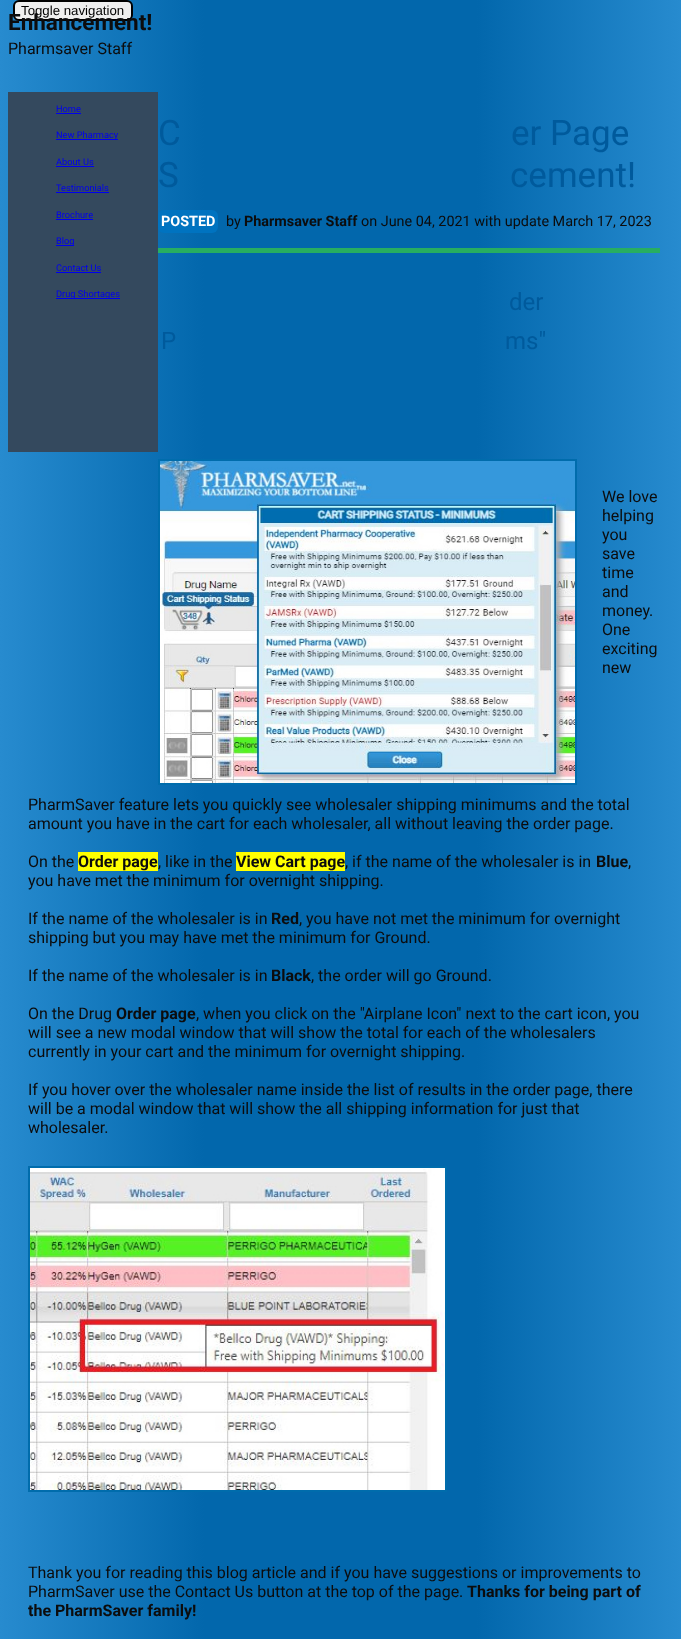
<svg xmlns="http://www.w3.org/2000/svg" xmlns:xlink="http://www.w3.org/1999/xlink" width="681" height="1639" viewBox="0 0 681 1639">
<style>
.cls-1{font:13.25px Liberation Sans;fill:#000000}
.cls-2{font:bold 22.5px Roboto;fill:#0c0c0d}
.cls-3{font:16px Roboto;fill:#0c0c0d}
.cls-4{font:9.25px Roboto;fill:#0000ee}
.cls-5{font:35px Roboto;fill:#005a9c}
.cls-6{font:bold 14.4px Roboto;fill:#ffffff}
.cls-7{font:14.4px Roboto;fill:#0c0c0d}
.cls-8{font:bold 14.4px Roboto;fill:#0c0c0d}
.cls-9{font:24px Roboto;fill:#005a9c}
.cls-10{font:bold 16px Roboto;fill:#0c0c0d}
</style>
<defs>
<linearGradient id="g1" gradientUnits="userSpaceOnUse" x1="0" y1="1072" x2="681" y2="1072"><stop offset="0" stop-color="#278bcf"/><stop offset="0.3" stop-color="#0267ac"/><stop offset="0.7" stop-color="#0267ac"/><stop offset="1" stop-color="#278bcf"/></linearGradient>
</defs>
<rect width="100%" height="100%" fill="#ffffff"/>
<rect fill="url(#g1)" x="0" y="0" width="681" height="1639"/>
<rect fill="#efefef" stroke="#000000" stroke-width="2" x="14" y="1" width="118" height="19" rx="5"/>
<rect fill="#34495e" x="8" y="92" width="150" height="360"/>
<rect fill="#0000ee" x="56" y="113" width="25" height="1"/>
<rect fill="#0000ee" x="56" y="139" width="62" height="1"/>
<rect fill="#0000ee" x="56" y="166" width="38" height="1"/>
<rect fill="#0000ee" x="56" y="192" width="53" height="1"/>
<rect fill="#0000ee" x="56" y="219" width="37" height="1"/>
<rect fill="#0000ee" x="56" y="245" width="18" height="1"/>
<rect fill="#0000ee" x="56" y="272" width="45" height="1"/>
<rect fill="#0000ee" x="56" y="298" width="64" height="1"/>
<rect fill="#27ae61" x="158" y="248" width="502" height="5"/>
<rect fill="#0073c0" x="158" y="210" width="60" height="23" rx="6"/>
<rect fill="none" stroke="#006cac" stroke-width="2" x="159" y="460" width="417" height="324"/>
<image xlink:href="image0.png" x="160" y="461" width="415" height="322"/>
<rect fill="#ffff00" x="78" y="852" width="80" height="19"/>
<rect fill="#ffff00" x="236" y="852" width="109" height="19"/>
<rect fill="none" stroke="#006cac" stroke-width="2" x="29" y="1167" width="417" height="324"/>
<image xlink:href="image1.png" x="30" y="1168" width="415" height="322"/>
<text class="cls-1" x="21" y="15">Toggle navigation</text>
<text class="cls-2" x="8" y="30">Enhancement!</text>
<text class="cls-3" x="8" y="54">Pharmsaver Staff</text>
<text class="cls-4" x="56" y="112">Home</text>
<text class="cls-4" x="56" y="138">New Pharmacy</text>
<text class="cls-4" x="56" y="165">About Us</text>
<text class="cls-4" x="56" y="191">Testimonials</text>
<text class="cls-4" x="56" y="218">Brochure</text>
<text class="cls-4" x="56" y="244">Blog</text>
<text class="cls-4" x="56" y="271">Contact Us</text>
<text class="cls-4" x="56" y="297">Drug Shortages</text>
<text class="cls-5" x="158" y="145">C</text>
<text class="cls-5" x="511" y="145">er Page</text>
<text class="cls-5" x="158" y="187">S</text>
<text class="cls-5" x="510" y="187">cement!</text>
<text class="cls-6" x="161" y="226">POSTED</text>
<text class="cls-7" x="226" y="226">by</text>
<text class="cls-8" x="244" y="226">Pharmsaver Staff</text>
<text class="cls-7" x="361" y="226">on June 04, 2021 with update March 17, 2023</text>
<text class="cls-9" x="509" y="310">der</text>
<text class="cls-9" x="161" y="349">P</text>
<text class="cls-9" x="505" y="349">ms"</text>
<text class="cls-3"><tspan x="602" y="502">We love</tspan><tspan x="602" y="521">helping</tspan><tspan x="602" y="540">you</tspan><tspan x="602" y="559">save</tspan><tspan x="602" y="578">time</tspan><tspan x="602" y="597">and</tspan><tspan x="602" y="616">money.</tspan><tspan x="602" y="635">One</tspan><tspan x="602" y="654">exciting</tspan><tspan x="602" y="673">new</tspan></text>
<text class="cls-3"><tspan x="28" y="810">PharmSaver feature lets you quickly see wholesaler shipping minimums and the total</tspan><tspan x="28" y="829">amount you have in the cart for each wholesaler, all without leaving the order page.</tspan></text>
<text class="cls-3" x="28" y="867">On the</text>
<text class="cls-10" x="78" y="867">Order page</text>
<text class="cls-3" x="158" y="867">, like in the</text>
<text class="cls-10" x="236" y="867">View Cart page</text>
<text class="cls-3" x="345" y="867">, if the name of the wholesaler is in</text>
<text class="cls-10" x="596" y="867">Blue</text>
<text class="cls-3" x="628" y="867">,</text>
<text class="cls-3" x="28" y="886">you have met the minimum for overnight shipping.</text>
<text class="cls-3" x="28" y="924">If the name of the wholesaler is in</text>
<text class="cls-10" x="271" y="924">Red</text>
<text class="cls-3" x="299" y="924">, you have not met the minimum for overnight</text>
<text class="cls-3" x="28" y="943">shipping but you may have met the minimum for Ground.</text>
<text class="cls-3" x="28" y="981">If the name of the wholesaler is in</text>
<text class="cls-10" x="271" y="981">Black</text>
<text class="cls-3" x="311" y="981">, the order will go Ground.</text>
<text class="cls-3" x="28" y="1019">On the Drug</text>
<text class="cls-10" x="116" y="1019">Order page</text>
<text class="cls-3" x="196" y="1019">, when you click on the "Airplane Icon" next to the cart icon, you</text>
<text class="cls-3"><tspan x="28" y="1038">will see a new modal window that will show the total for each of the wholesalers</tspan><tspan x="28" y="1057">currently in your cart and the minimum for overnight shipping.</tspan></text>
<text class="cls-3"><tspan x="28" y="1095">If you hover over the wholesaler name inside the list of results in the order page, there</tspan><tspan x="28" y="1114">will be a modal window that will show the all shipping information for just that</tspan><tspan x="28" y="1133">wholesaler.</tspan></text>
<text class="cls-3"><tspan x="28" y="1578">Thank you for reading this blog article and if you have suggestions or improvements to</tspan><tspan x="28" y="1597">PharmSaver use the Contact Us button at the top of the page.</tspan></text>
<text class="cls-10" x="467" y="1597">Thanks for being part of</text>
<text class="cls-10" x="28" y="1616">the PharmSaver family!</text>
</svg>
